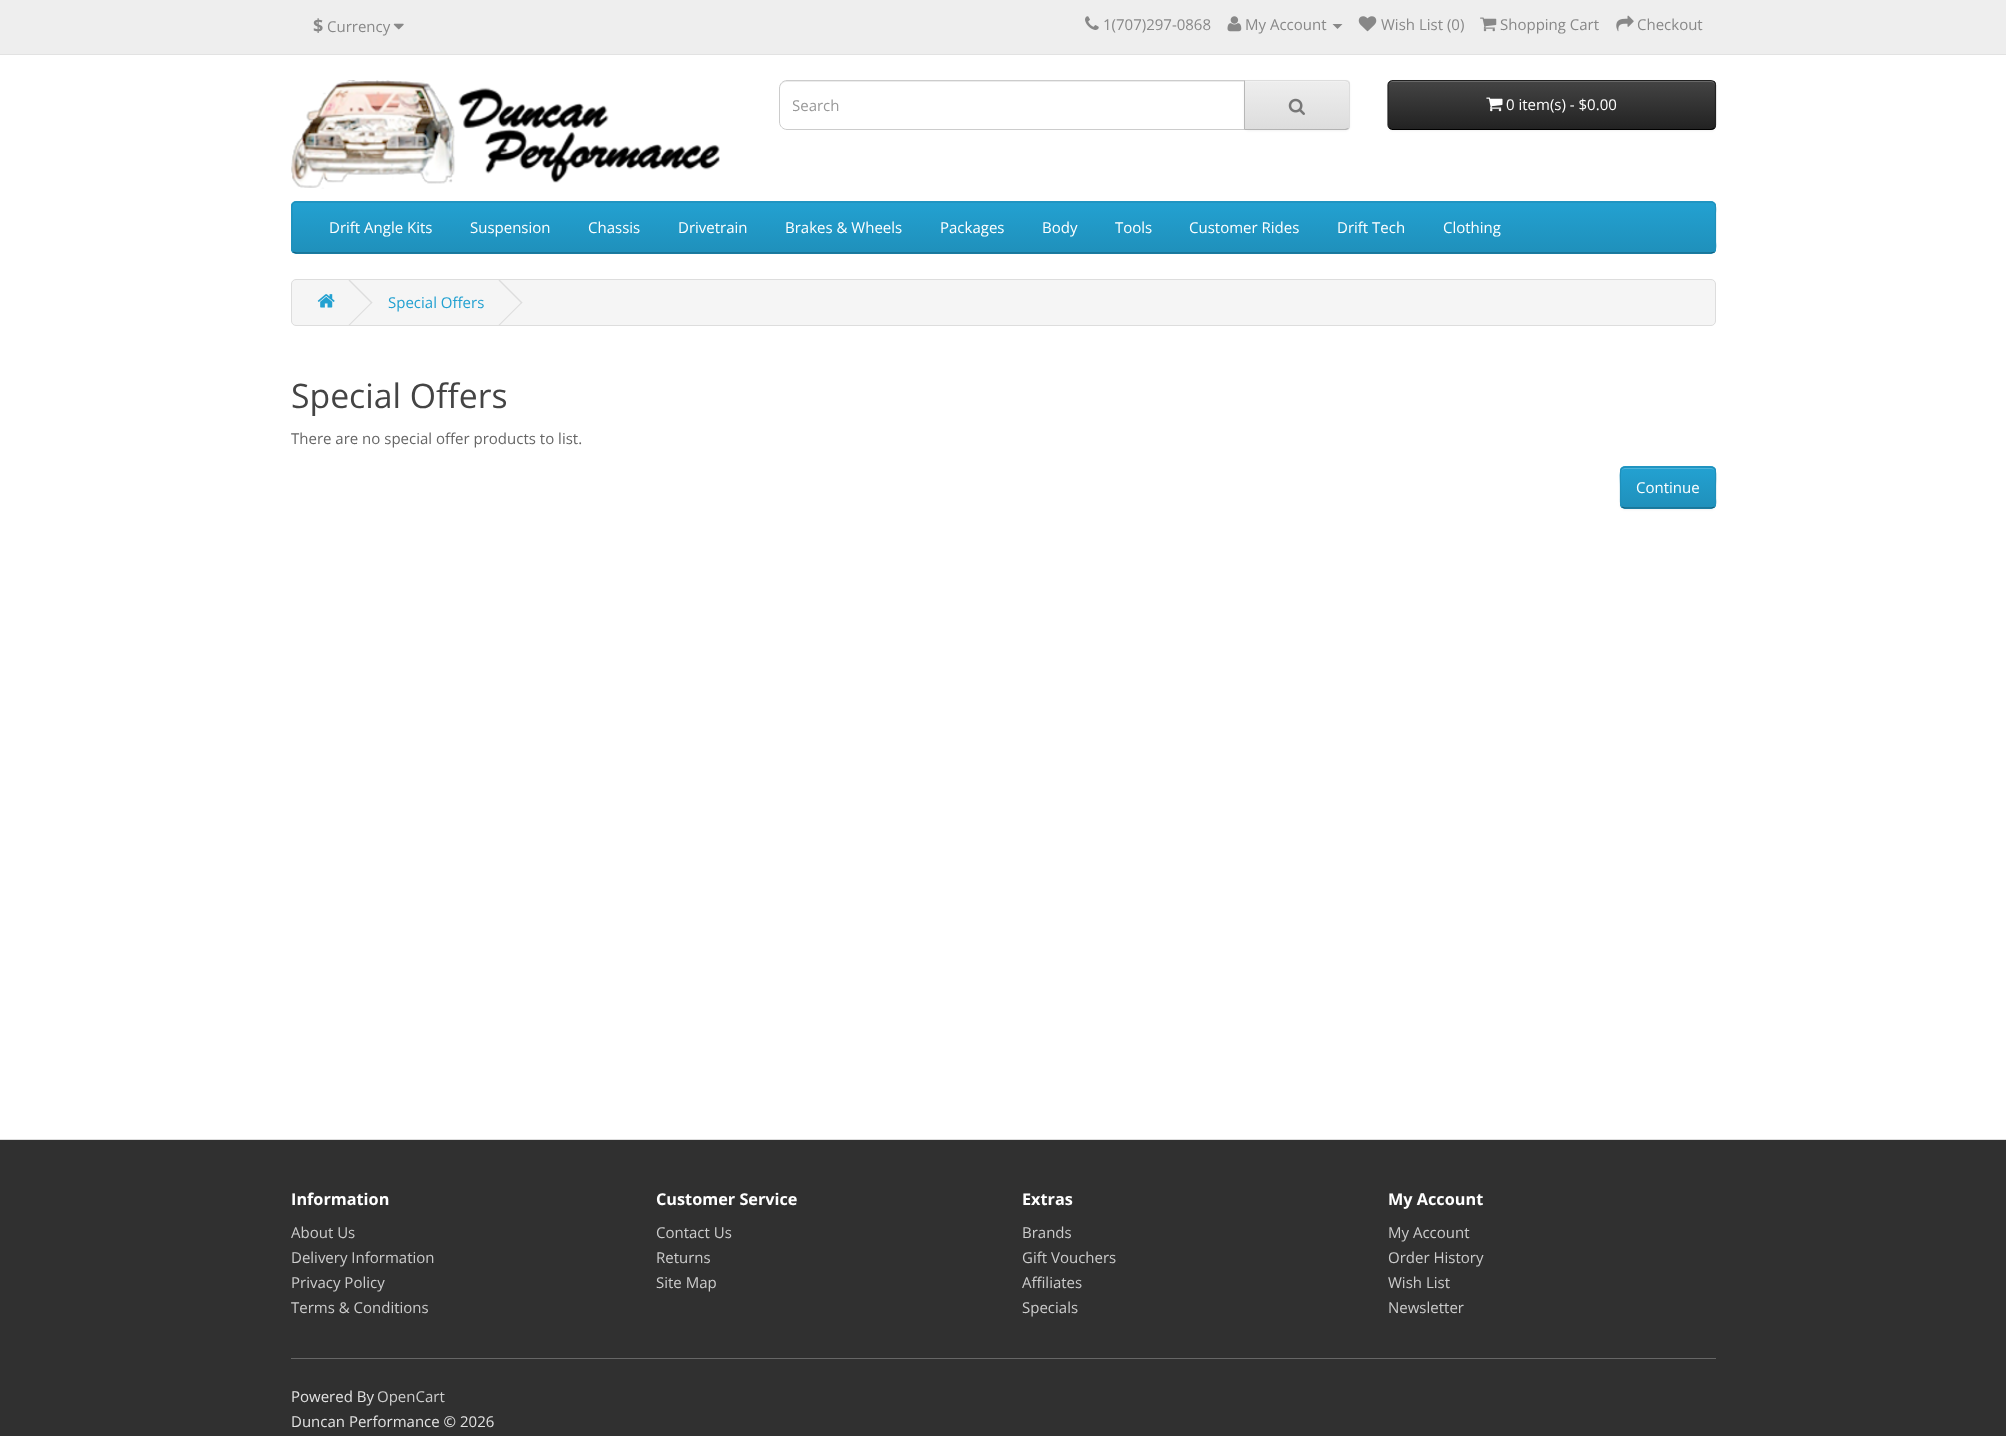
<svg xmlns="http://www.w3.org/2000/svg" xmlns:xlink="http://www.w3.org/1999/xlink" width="2006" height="1436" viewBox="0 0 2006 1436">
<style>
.cls-1{font:bold 18px Open Sans;fill:#888888}
.cls-2{font:15px Open Sans;fill:#888888}
.cls-3{font:15px Open Sans;fill:#999999}
.cls-4{font:15px Open Sans;fill:#ffffff}
.cls-5{font:15px Open Sans;fill:#23a1d1}
.cls-6{font:33.75px Open Sans;fill:#444444}
.cls-7{font:15px Open Sans;fill:#666666}
.cls-8{font:bold 16.25px Open Sans;fill:#ffffff}
.cls-9{font:15px Open Sans;fill:#cccccc}
.cls-10{font:15px Open Sans;fill:#e2e2e2}
</style>
<defs>
<clipPath id="clip1"><path d="M1244 80H1345C1348 80 1350 82 1350 85V125C1350 128 1348 130 1345 130H1244Z"/></clipPath>
<linearGradient id="g1" gradientUnits="userSpaceOnUse" x1="1297" y1="81" x2="1297" y2="129"><stop offset="0" stop-color="#eeeeee"/><stop offset="1" stop-color="#dddddd"/></linearGradient>
<clipPath id="clip2"><rect x="1388" y="80" width="328" height="50" rx="5"/></clipPath>
<linearGradient id="g2" gradientUnits="userSpaceOnUse" x1="1552" y1="81" x2="1552" y2="129"><stop offset="0" stop-color="#444444"/><stop offset="1" stop-color="#222222"/></linearGradient>
<clipPath id="clip3"><rect x="291" y="201" width="1425" height="53" rx="5"/></clipPath>
<linearGradient id="g3" gradientUnits="userSpaceOnUse" x1="1004" y1="202" x2="1004" y2="253"><stop offset="0" stop-color="#23a1d1"/><stop offset="1" stop-color="#1f90bb"/></linearGradient>
<clipPath id="clip4"><rect x="1620" y="466" width="96" height="43" rx="5"/></clipPath>
<linearGradient id="g4" gradientUnits="userSpaceOnUse" x1="1668" y1="468" x2="1668" y2="508"><stop offset="0" stop-color="#23a1d1"/><stop offset="1" stop-color="#1f90bb"/></linearGradient>
<clipPath id="clip5"><rect x="793" y="95" width="438" height="21"/></clipPath>
</defs>
<rect width="100%" height="100%" fill="#ffffff"/>
<rect fill="#eeeeee" x="0" y="0" width="2006" height="54"/>
<rect fill="#e2e2e2" x="0" y="54" width="2006" height="1"/>
<image xlink:href="image0.png" x="393" y="23" width="11" height="7"/>
<image xlink:href="image1.png" x="1085" y="16" width="14" height="14"/>
<image xlink:href="image2.png" x="1227" y="16" width="15" height="16"/>
<path fill="#888888" d="M1332.5 24H1342.5L1337.5 29Z"/>
<image xlink:href="image3.png" x="1358" y="16" width="19" height="16"/>
<image xlink:href="image4.png" x="1480" y="17" width="17" height="15"/>
<image xlink:href="image5.png" x="1616" y="15" width="18" height="17"/>
<image xlink:href="image6.png" x="291" y="80" width="429" height="109"/>
<path fill="#ececec" d="M786 82H1244V81H786C781 81 780 85 780 89C780 85 783 82 786 82Z"/>
<path fill="none" stroke="#cccccc" d="M787 80.5H1244.5V129.5H787C783 129.5 779.5 126 779.5 122V88C779.5 84 783 80.5 787 80.5Z"/>
<rect fill="#000000" fill-opacity="0.05" filter="blur(1px)" x="1244" y="81" width="106" height="50" rx="5"/>
<g clip-path="url(#clip1)">
<rect fill="url(#g1)" x="1245" y="81" width="105" height="48"/>
</g>
<path fill="#f1f1f1" d="M1245 82H1345C1347 82 1349 84 1349 86V85C1349 83 1347 81 1345 81H1245Z"/>
<path fill="#dddddd" d="M1244 80L1245 81H1345L1348 82L1349 81C1348 80 1346 80 1345 80Z"/>
<path fill="#dddddd" d="M1350 125V85C1350 84 1350 82 1349 81L1348 82C1348 83 1349 84 1349 85V125C1349 126 1348 127 1348 128L1349 129C1350 128 1350 126 1350 125Z"/>
<path fill="#b3b3b3" d="M1244 130H1346L1349 129L1348 128L1345 129H1245Z"/>
<path fill="#b7b7b7" d="M1244 80V130L1245 129V81Z"/>
<image xlink:href="image7.png" x="1288" y="98" width="17" height="17"/>
<rect fill="#000000" fill-opacity="0.05" filter="blur(1px)" x="1388" y="81" width="328" height="50" rx="5"/>
<g clip-path="url(#clip2)">
<rect fill="url(#g2)" x="1388" y="81" width="328" height="48"/>
</g>
<path fill="#696969" d="M1392 82H1711C1713 82 1715 84 1715 86V85C1715 83 1713 81 1711 81H1393C1391 81 1389 83 1389 85V86C1389 84 1390 82 1392 82Z"/>
<path fill="none" stroke="#000000" stroke-width="1.2" d="M1714.5 128C1713.5 129 1712.5 129.5 1711 129.5H1392.5C1391.5 129.5 1390 129 1389.5 128"/>
<path fill="none" stroke="#222222" stroke-width="1.2" d="M1389.5 128C1388.5 127.5 1388 126 1388 125V85C1388 84 1388.5 82.5 1389.5 82C1390 81 1391.5 80.5 1392.5 80.5H1711C1712.5 80.5 1713.5 81 1714.5 82C1715 82.5 1715.5 84 1715.5 85V125C1715.5 126 1715 127.5 1714.5 128"/>
<image xlink:href="image8.png" x="1486" y="97" width="17" height="15"/>
<rect fill="#229ac8" x="291" y="201" width="1425" height="53" rx="5"/>
<g clip-path="url(#clip3)">
<rect fill="url(#g3)" x="291" y="203" width="1425" height="50"/>
</g>
<path fill="none" stroke="#145e7a" stroke-width="1.2" d="M1714.5 252L1711 253H296L293 252"/>
<path fill="none" stroke="#1f90bb" stroke-width="1.2" d="M293 252C291 249.5 292 244 292 241.5V213.5C292 210 290.5 202 296 202H1711C1717 202 1715.5 210 1715.5 213.5V241.5C1715.5 244 1716.5 249.5 1714.5 252"/>
<rect fill="#f5f5f5" stroke="#dddddd" x="291.5" y="279.5" width="1424" height="46" rx="4.5"/>
<image xlink:href="image9.png" x="317" y="294" width="18" height="14"/>
<path fill="#dddddd" d="M348.5 280.5L349.5 279.5L372.5 302.5L371.5 303.5Z"/>
<path fill="#dddddd" d="M348.5 325L371.5 302L372.5 302.5L349.5 325.5Z"/>
<path fill="#dddddd" d="M498.5 280.5L499.5 279.5L522.5 302.5L521.5 303.5Z"/>
<path fill="#dddddd" d="M498.5 325L521.5 302L522.5 302.5L499.5 325.5Z"/>
<rect fill="#000000" fill-opacity="0.05" filter="blur(1px)" x="1620" y="468" width="96" height="42" rx="5"/>
<rect fill="#229ac8" x="1620" y="466" width="96" height="43" rx="5"/>
<g clip-path="url(#clip4)">
<rect fill="url(#g4)" x="1620" y="468" width="96" height="40"/>
</g>
<path fill="#4fb4da" d="M1625 469H1711C1713 469 1715 470 1715 472C1715 470 1713 468 1711 468H1625C1623 468 1621 470 1621 472C1621 470 1623 469 1625 469Z"/>
<path fill="none" stroke="#145e7a" stroke-width="1.2" d="M1714.5 507L1711.5 508H1624.5L1622 507"/>
<path fill="none" stroke="#1f90bb" stroke-width="1.2" d="M1622 507C1620 504.5 1620.5 500.5 1620.5 498.5V487.5C1620.5 464.5 1616.5 467 1639.5 467H1697C1719.5 467 1715.5 464.5 1715.5 487.5V498.5C1715.5 500.5 1716.5 504.5 1714.5 507"/>
<rect fill="#303030" x="0" y="1140" width="2006" height="296"/>
<rect fill="#dddddd" x="0" y="1139" width="2006" height="1"/>
<rect fill="#666666" x="291" y="1358" width="1425" height="1"/>
<text class="cls-1" x="313" y="32">$</text>
<text class="cls-2" x="327" y="32">Currency</text>
<text class="cls-2" x="1103" y="30">1(707)297-0868</text>
<text class="cls-2" x="1245" y="30">My Account</text>
<text class="cls-2" x="1381" y="30">Wish List (0)</text>
<text class="cls-2" x="1500" y="30">Shopping Cart</text>
<text class="cls-2" x="1637" y="30">Checkout</text>
<g clip-path="url(#clip5)">
<text class="cls-3" x="792" y="111">Search</text>
</g>
<text class="cls-4" x="1506" y="110">0 item(s) - $0.00</text>
<text class="cls-4" x="329" y="233">Drift Angle Kits</text>
<text class="cls-4" x="470" y="233">Suspension</text>
<text class="cls-4" x="588" y="233">Chassis</text>
<text class="cls-4" x="678" y="233">Drivetrain</text>
<text class="cls-4" x="785" y="233">Brakes &amp; Wheels</text>
<text class="cls-4" x="940" y="233">Packages</text>
<text class="cls-4" x="1042" y="233">Body</text>
<text class="cls-4" x="1115" y="233">Tools</text>
<text class="cls-4" x="1189" y="233">Customer Rides</text>
<text class="cls-4" x="1337" y="233">Drift Tech</text>
<text class="cls-4" x="1443" y="233">Clothing</text>
<text class="cls-5" x="388" y="308">Special Offers</text>
<text class="cls-6" x="291" y="408">Special Offers</text>
<text class="cls-7" x="291" y="444">There are no special offer products to list.</text>
<text class="cls-4" x="1636" y="493">Continue</text>
<text class="cls-8" x="291" y="1205">Information</text>
<text class="cls-9"><tspan x="291" y="1238">About Us</tspan><tspan x="291" y="1263">Delivery Information</tspan><tspan x="291" y="1288">Privacy Policy</tspan><tspan x="291" y="1313">Terms &amp; Conditions</tspan></text>
<text class="cls-8" x="656" y="1205">Customer Service</text>
<text class="cls-9"><tspan x="656" y="1238">Contact Us</tspan><tspan x="656" y="1263">Returns</tspan><tspan x="656" y="1288">Site Map</tspan></text>
<text class="cls-8" x="1022" y="1205">Extras</text>
<text class="cls-9"><tspan x="1022" y="1238">Brands</tspan><tspan x="1022" y="1263">Gift Vouchers</tspan><tspan x="1022" y="1288">Affiliates</tspan><tspan x="1022" y="1313">Specials</tspan></text>
<text class="cls-8" x="1388" y="1205">My Account</text>
<text class="cls-9"><tspan x="1388" y="1238">My Account</tspan><tspan x="1388" y="1263">Order History</tspan><tspan x="1388" y="1288">Wish List</tspan><tspan x="1388" y="1313">Newsletter</tspan></text>
<text class="cls-10" x="291" y="1402">Powered By</text>
<text class="cls-9" x="377" y="1402">OpenCart</text>
<text class="cls-10" x="291" y="1427">Duncan Performance © 2026</text>
</svg>
